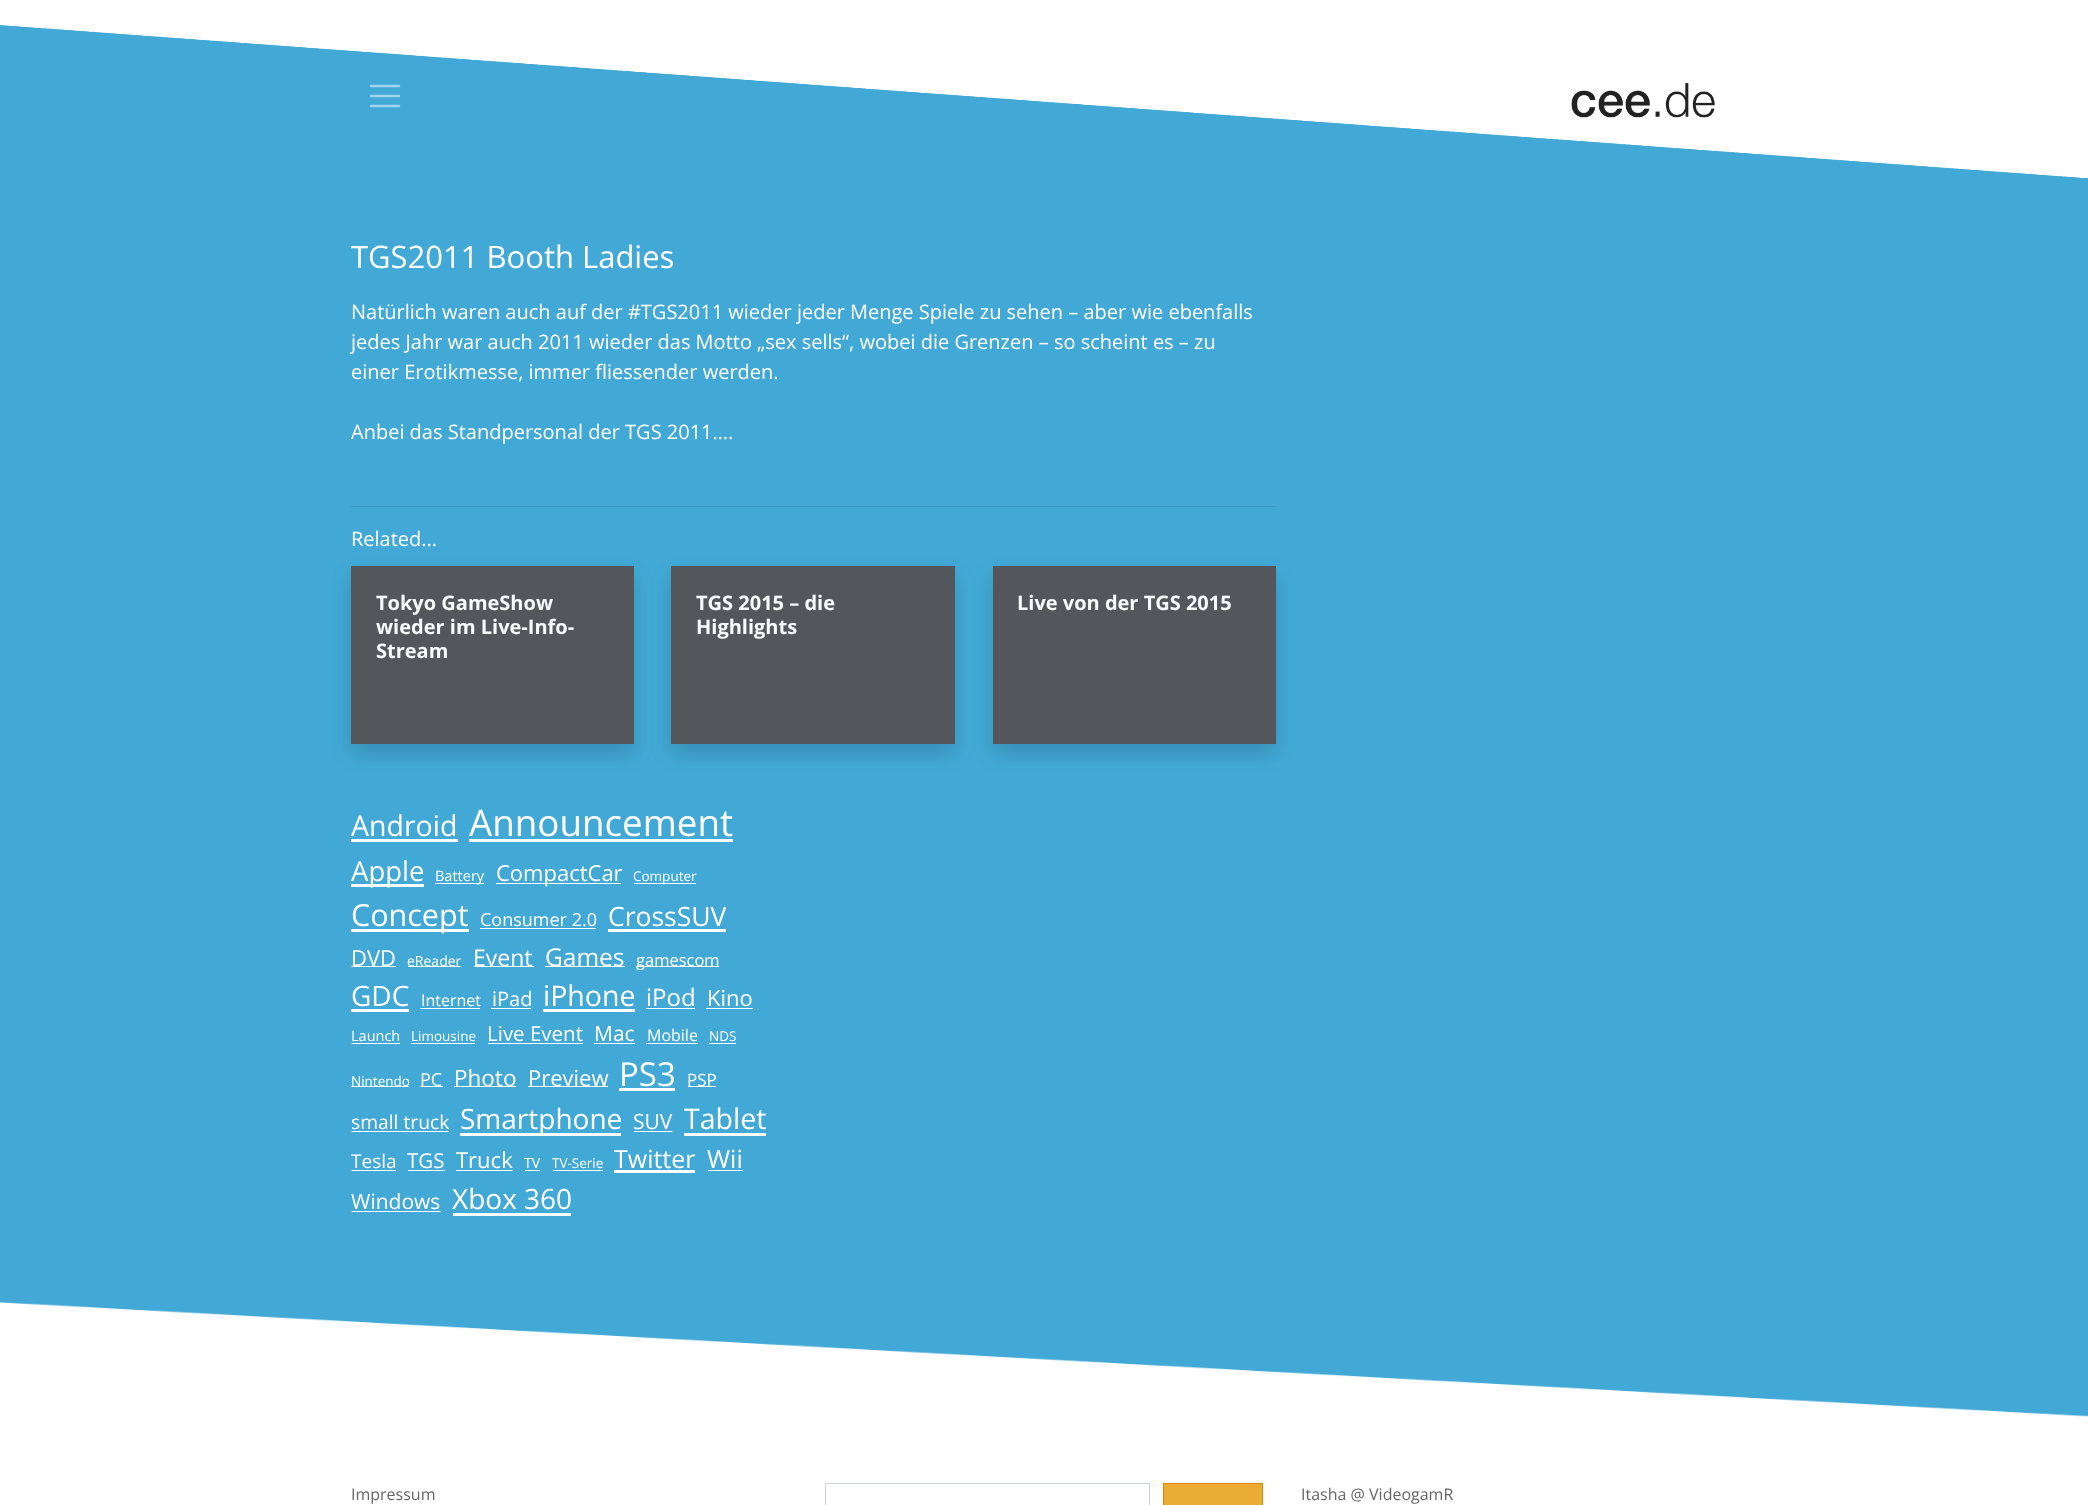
<svg xmlns="http://www.w3.org/2000/svg" xmlns:xlink="http://www.w3.org/1999/xlink" width="2088" height="1505" viewBox="0 0 2088 1505">
<style>
.cls-1{font:31px Open Sans;fill:#ffffff}
.cls-2{font:20px Open Sans;fill:#ffffff}
.cls-3{font:bold 20px Open Sans;fill:#f8f9fa}
.cls-4{font:28.5px Open Sans;fill:#ffffff}
.cls-5{font:36.75px Open Sans;fill:#ffffff}
.cls-6{font:27.5px Open Sans;fill:#ffffff}
.cls-7{font:14.5px Open Sans;fill:#ffffff}
.cls-8{font:22px Open Sans;fill:#ffffff}
.cls-9{font:13.5px Open Sans;fill:#ffffff}
.cls-10{font:30.5px Open Sans;fill:#ffffff}
.cls-11{font:18px Open Sans;fill:#ffffff}
.cls-12{font:26.5px Open Sans;fill:#ffffff}
.cls-13{font:14px Open Sans;fill:#ffffff}
.cls-14{font:23px Open Sans;fill:#ffffff}
.cls-15{font:24.5px Open Sans;fill:#ffffff}
.cls-16{font:16.5px Open Sans;fill:#ffffff}
.cls-17{font:28px Open Sans;fill:#ffffff}
.cls-18{font:16px Open Sans;fill:#ffffff}
.cls-19{font:24px Open Sans;fill:#ffffff}
.cls-20{font:20.5px Open Sans;fill:#ffffff}
.cls-21{font:21px Open Sans;fill:#ffffff}
.cls-22{font:22.5px Open Sans;fill:#ffffff}
.cls-23{font:33px Open Sans;fill:#ffffff}
.cls-24{font:17px Open Sans;fill:#ffffff}
.cls-25{font:19.25px Open Sans;fill:#ffffff}
.cls-26{font:19px Open Sans;fill:#ffffff}
.cls-27{font:25px Open Sans;fill:#ffffff}
.cls-28{font:16px Open Sans;fill:#666666}
</style>
<rect width="100%" height="100%" fill="#42a9d6"/>
<image xlink:href="image0.png" x="0" y="0" width="2088" height="179"/>
<path fill="none" stroke="#a1d4eb" stroke-width="2.5" stroke-linecap="round" d="M371 86H399M371 96H399M371 106H399"/>
<image xlink:href="image1.png" x="1571" y="83" width="144" height="35"/>
<rect fill="#3b98c1" x="351" y="506" width="925" height="1"/>
<rect fill="#000000" fill-opacity="0.15" filter="blur(10px)" x="351" y="576" width="283" height="178"/>
<rect fill="#53575c" x="351" y="566" width="283" height="178"/>
<rect fill="#000000" fill-opacity="0.15" filter="blur(10px)" x="671" y="576" width="284" height="178"/>
<rect fill="#53575c" x="671" y="566" width="284" height="178"/>
<rect fill="#000000" fill-opacity="0.15" filter="blur(10px)" x="993" y="576" width="283" height="178"/>
<rect fill="#53575c" x="993" y="566" width="283" height="178"/>
<rect fill="#ffffff" x="351" y="839" width="107" height="3"/>
<rect fill="#ffffff" x="469" y="839" width="264" height="3"/>
<rect fill="#ffffff" x="351" y="884" width="73" height="3"/>
<rect fill="#ffffff" x="435" y="883" width="49" height="1"/>
<rect fill="#ffffff" x="496" y="883" width="125" height="1"/>
<rect fill="#ffffff" x="634" y="883" width="62" height="1"/>
<rect fill="#ffffff" x="351" y="929" width="118" height="3"/>
<rect fill="#ffffff" x="480" y="928" width="116" height="1"/>
<rect fill="#ffffff" x="608" y="929" width="118" height="3"/>
<rect fill="#ffffff" x="351" y="966" width="45" height="1"/>
<rect fill="#ffffff" x="408" y="966" width="53" height="1"/>
<rect fill="#ffffff" x="474" y="966" width="60" height="1"/>
<rect fill="#ffffff" x="545" y="966" width="80" height="1"/>
<rect fill="#ffffff" x="636" y="966" width="83" height="1"/>
<rect fill="#ffffff" x="351" y="1009" width="58" height="3"/>
<rect fill="#ffffff" x="420" y="1008" width="60" height="1"/>
<rect fill="#ffffff" x="491" y="1008" width="40" height="1"/>
<rect fill="#ffffff" x="543" y="1009" width="92" height="3"/>
<rect fill="#ffffff" x="646" y="1008" width="49" height="1"/>
<rect fill="#ffffff" x="706" y="1008" width="47" height="1"/>
<rect fill="#ffffff" x="351" y="1043" width="49" height="1"/>
<rect fill="#ffffff" x="411" y="1043" width="64" height="1"/>
<rect fill="#ffffff" x="488" y="1043" width="95" height="1"/>
<rect fill="#ffffff" x="594" y="1043" width="41" height="1"/>
<rect fill="#ffffff" x="646" y="1043" width="52" height="1"/>
<rect fill="#ffffff" x="709" y="1043" width="27" height="1"/>
<rect fill="#ffffff" x="351" y="1086" width="58" height="1"/>
<rect fill="#ffffff" x="420" y="1086" width="23" height="1"/>
<rect fill="#ffffff" x="454" y="1086" width="62" height="1"/>
<rect fill="#ffffff" x="528" y="1086" width="80" height="1"/>
<rect fill="#ffffff" x="619" y="1088" width="56" height="3"/>
<rect fill="#ffffff" x="688" y="1086" width="28" height="1"/>
<rect fill="#ffffff" x="351" y="1131" width="98" height="1"/>
<rect fill="#ffffff" x="460" y="1133" width="161" height="3"/>
<rect fill="#ffffff" x="634" y="1131" width="39" height="1"/>
<rect fill="#ffffff" x="684" y="1133" width="82" height="3"/>
<rect fill="#ffffff" x="351" y="1170" width="45" height="1"/>
<rect fill="#ffffff" x="408" y="1170" width="37" height="1"/>
<rect fill="#ffffff" x="456" y="1170" width="57" height="1"/>
<rect fill="#ffffff" x="525" y="1170" width="15" height="1"/>
<rect fill="#ffffff" x="553" y="1170" width="50" height="1"/>
<rect fill="#ffffff" x="614" y="1170" width="81" height="3"/>
<rect fill="#ffffff" x="708" y="1170" width="35" height="1"/>
<rect fill="#ffffff" x="351" y="1211" width="90" height="1"/>
<rect fill="#ffffff" x="453" y="1213" width="118" height="3"/>
<image xlink:href="image2.png" x="0" y="1302" width="2088" height="203"/>
<rect fill="none" stroke="#ced4da" x="825.5" y="1483.5" width="324" height="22"/>
<rect fill="#eaac34" stroke="#dd8800" x="1163.5" y="1483.5" width="99" height="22"/>
<text class="cls-1" x="351" y="268">TGS2011 Booth Ladies</text>
<text class="cls-2"><tspan x="351" y="319">Natürlich waren auch auf der #TGS2011 wieder jeder Menge Spiele zu sehen – aber wie ebenfalls</tspan><tspan x="351" y="349">jedes Jahr war auch 2011 wieder das Motto „sex sells“, wobei die Grenzen – so scheint es – zu</tspan><tspan x="351" y="379">einer Erotikmesse, immer fliessender werden.</tspan></text>
<text class="cls-2" x="351" y="439">Anbei das Standpersonal der TGS 2011….</text>
<text class="cls-2" x="351" y="546">Related...</text>
<text class="cls-3"><tspan x="376" y="610">Tokyo GameShow</tspan><tspan x="376" y="634">wieder im Live-Info-</tspan><tspan x="376" y="658">Stream</tspan></text>
<text class="cls-3"><tspan x="696" y="610">TGS 2015 – die</tspan><tspan x="696" y="634">Highlights</tspan></text>
<text class="cls-3" x="1017" y="610">Live von der TGS 2015</text>
<text class="cls-4" x="351" y="836">Android</text>
<text class="cls-5" x="469" y="836">Announcement</text>
<text class="cls-6" x="351" y="881">Apple</text>
<text class="cls-7" x="435" y="881">Battery</text>
<text class="cls-8" x="496" y="881">CompactCar</text>
<text class="cls-9" x="633" y="881">Computer</text>
<text class="cls-10" x="351" y="926">Concept</text>
<text class="cls-11" x="480" y="926">Consumer 2.0</text>
<text class="cls-12" x="608" y="926">CrossSUV</text>
<text class="cls-8" x="351" y="966">DVD</text>
<text class="cls-13" x="407" y="966">eReader</text>
<text class="cls-14" x="473" y="966">Event</text>
<text class="cls-15" x="545" y="966">Games</text>
<text class="cls-16" x="636" y="966">gamescom</text>
<text class="cls-17" x="351" y="1006">GDC</text>
<text class="cls-18" x="421" y="1006">Internet</text>
<text class="cls-2" x="492" y="1006">iPad</text>
<text class="cls-4" x="543" y="1006">iPhone</text>
<text class="cls-19" x="646" y="1006">iPod</text>
<text class="cls-8" x="707" y="1006">Kino</text>
<text class="cls-7" x="351" y="1041">Launch</text>
<text class="cls-9" x="411" y="1041">Limousine</text>
<text class="cls-20" x="487" y="1041">Live Event</text>
<text class="cls-21" x="594" y="1041">Mac</text>
<text class="cls-18" x="647" y="1041">Mobile</text>
<text class="cls-9" x="709" y="1041">NDS</text>
<text class="cls-9" x="351" y="1086">Nintendo</text>
<text class="cls-11" x="420" y="1086">PC</text>
<text class="cls-22" x="454" y="1086">Photo</text>
<text class="cls-8" x="528" y="1086">Preview</text>
<text class="cls-23" x="619" y="1086">PS3</text>
<text class="cls-24" x="687" y="1086">PSP</text>
<text class="cls-25" x="351" y="1129">small truck</text>
<text class="cls-17" x="460" y="1129">Smartphone</text>
<text class="cls-21" x="633" y="1129">SUV</text>
<text class="cls-4" x="684" y="1129">Tablet</text>
<text class="cls-26" x="351" y="1168">Tesla</text>
<text class="cls-20" x="407" y="1168">TGS</text>
<text class="cls-8" x="456" y="1168">Truck</text>
<text class="cls-13" x="524" y="1168">TV</text>
<text class="cls-9" x="552" y="1168">TV-Serie</text>
<text class="cls-27" x="614" y="1168">Twitter</text>
<text class="cls-27" x="707" y="1168">Wii</text>
<text class="cls-21" x="351" y="1209">Windows</text>
<text class="cls-17" x="452" y="1209">Xbox 360</text>
<text class="cls-28" x="351" y="1500">Impressum</text>
<text class="cls-28" x="1301" y="1500">Itasha @ VideogamR</text>
</svg>
